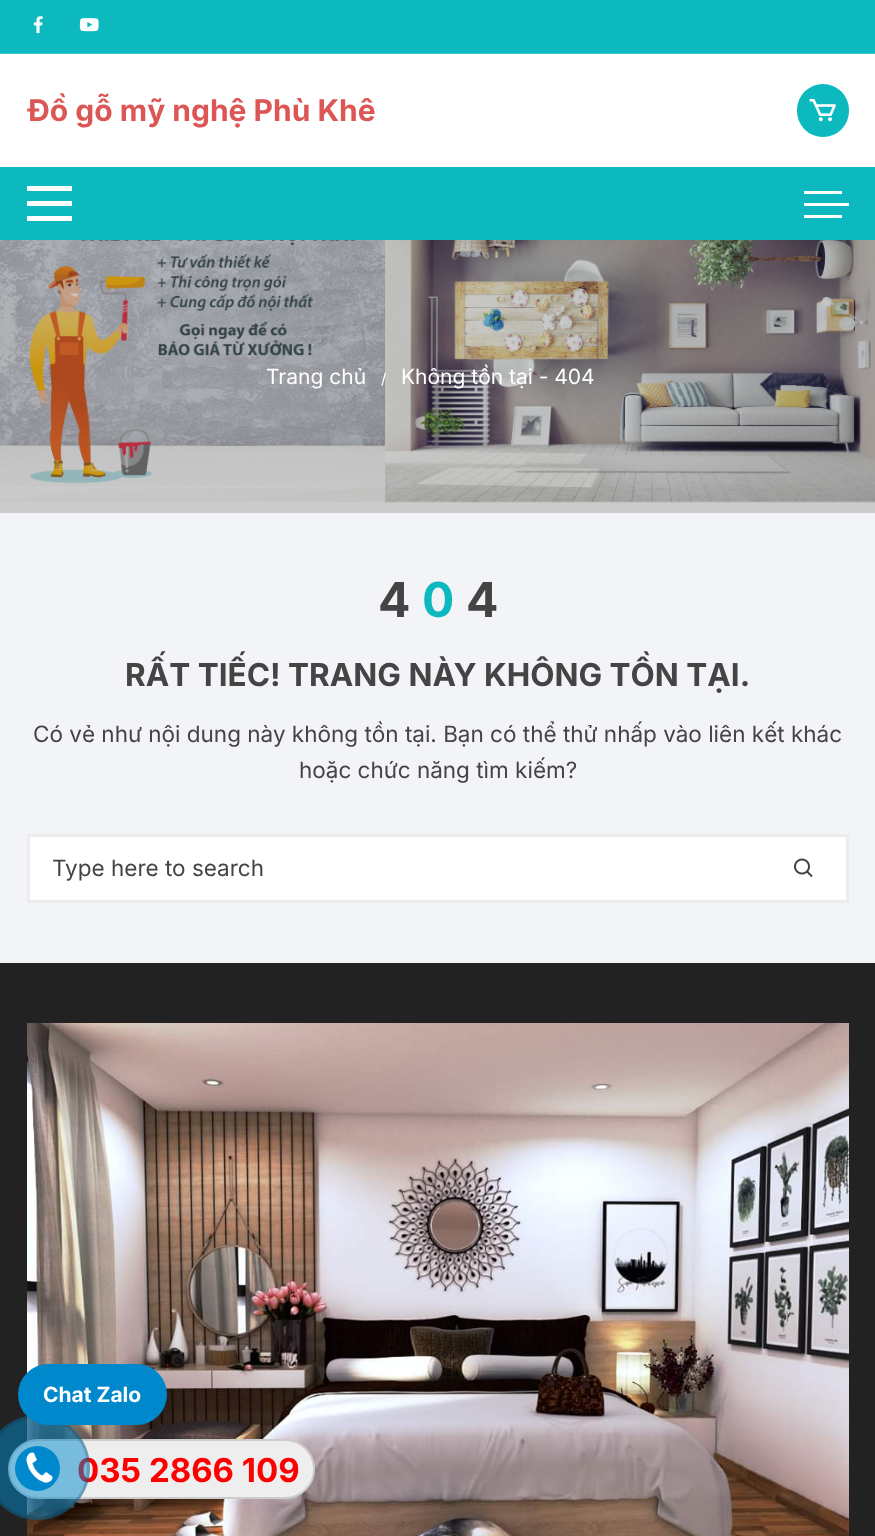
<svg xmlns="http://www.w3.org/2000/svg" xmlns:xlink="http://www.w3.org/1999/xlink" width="875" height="1536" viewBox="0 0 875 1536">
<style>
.cls-1{font:bold 30px Inter;fill:#dd5656}
.cls-2{font:21px Inter;fill:#ffffff}
.cls-3{font:15px Inter;fill:#ffffff}
.cls-4{font:bold 48px Inter;fill:#444444}
.cls-5{font:bold 48px Inter;fill:#0bb9bf}
.cls-6{font:bold 31.5px Inter;fill:#444444}
.cls-7{font:22.5px Inter;fill:#444444}
.cls-8{font:bold 33px Inter;fill:#ff0000}
.cls-9{font:bold 21px Inter;fill:#ffffff}
</style>
<rect width="100%" height="100%" fill="#f3f4f8"/>
<rect fill="#ffffff" x="0" y="54" width="875" height="113"/>
<rect fill="#0bb9bf" x="0" y="0" width="875" height="54"/>
<rect fill="#ffffff" fill-opacity="0.2" x="0" y="53" width="875" height="1"/>
<image xlink:href="image0.png" x="33" y="16" width="10" height="18"/>
<image xlink:href="image1.png" x="79" y="18" width="20" height="14"/>
<rect fill="#0bb9bf" x="797" y="84" width="52" height="53" rx="26"/>
<image xlink:href="image2.png" x="809" y="98" width="27" height="24"/>
<rect fill="#0bb9bf" x="0" y="167" width="875" height="73"/>
<rect fill="#ffffff" x="27" y="186" width="45" height="5"/>
<rect fill="#ffffff" x="27" y="201" width="45" height="5"/>
<rect fill="#ffffff" x="27" y="216" width="45" height="5"/>
<rect fill="#ffffff" x="804" y="191" width="38" height="3"/>
<rect fill="#ffffff" x="804" y="203" width="45" height="3"/>
<rect fill="#ffffff" x="804" y="215" width="38" height="3"/>
<image xlink:href="image3.png" x="0" y="240" width="875" height="273"/>
<rect fill="#ffffff" stroke="#ececec" stroke-width="3" x="28.5" y="835.5" width="819" height="66"/>
<image xlink:href="image4.png" x="794" y="858" width="19" height="20"/>
<rect fill="#222222" x="0" y="963" width="875" height="573"/>
<image xlink:href="image5.png" x="27" y="1023" width="822" height="513"/>
<rect fill="#eeeeee" stroke="#cccccc" stroke-width="2" x="9" y="1440" width="305" height="58" rx="29"/>
<text class="cls-1" x="27" y="121">Đồ gỗ mỹ nghệ Phù Khê</text>
<text class="cls-2" x="266" y="384">Trang chủ</text>
<text class="cls-3" x="381" y="384">/</text>
<text class="cls-2" x="401" y="384">Không tồn tại - 404</text>
<text class="cls-4" x="378" y="617">4</text>
<text class="cls-5" x="422" y="617">0</text>
<text class="cls-4" x="466" y="617">4</text>
<text class="cls-6" x="125" y="686">RẤT TIẾC! TRANG NÀY KHÔNG TỒN TẠI.</text>
<text class="cls-7" x="33" y="742">Có vẻ như nội dung này không tồn tại. Bạn có thể thử nhấp vào liên kết khác</text>
<text class="cls-7" x="299" y="778">hoặc chức năng tìm kiếm?</text>
<text class="cls-7" x="52" y="876">Type here to search</text>
<text class="cls-8" x="77" y="1482">035 2866 109</text>
<circle fill="#0088cc" fill-opacity="0.5" cx="37.5" cy="1467.5" r="52.5"/>
<circle fill="none" stroke="#1e1e1e" stroke-opacity="0.2" stroke-width="3" cx="37.5" cy="1467.5" r="51"/>
<rect fill="#0088cc" x="18" y="1364" width="149" height="61" rx="30.5"/>
<text class="cls-9" x="43" y="1402">Chat Zalo</text>
<circle fill="#0088cc" cx="37.5" cy="1468.5" r="22.5"/>
<image xlink:href="image6.png" x="26" y="1452" width="27" height="31"/>
</svg>
